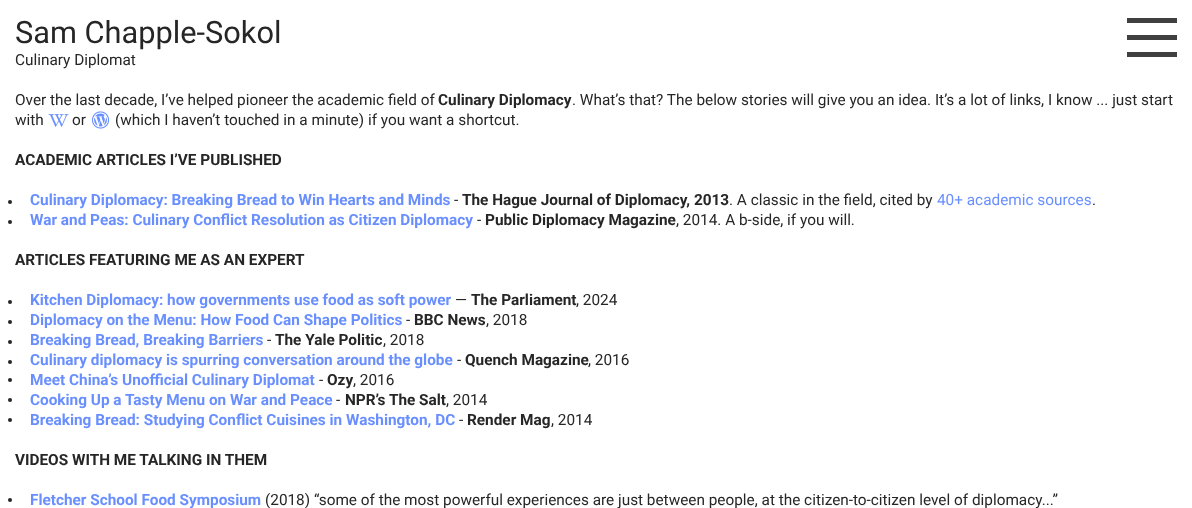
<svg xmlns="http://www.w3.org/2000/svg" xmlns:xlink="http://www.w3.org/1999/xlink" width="1192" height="508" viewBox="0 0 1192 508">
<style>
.cls-1{font:30.75px Roboto;fill:#262626}
.cls-2{font:15.35px Roboto;fill:#262626}
.cls-3{font:bold 15.35px Roboto;fill:#262626}
.cls-4{font:bold 15.35px Roboto;fill:#698fff}
.cls-5{font:15.35px Roboto;fill:#698fff}
</style>
<rect width="100%" height="100%" fill="#ffffff"/>
<path fill="#404040" d="M1177 18V23H1127V18ZM1177 35V40H1127V35ZM1177 52V57H1127V52Z"/>
<image xlink:href="image0.png" x="48" y="114" width="21" height="13"/>
<image xlink:href="image1.png" x="92" y="111" width="18" height="18"/>
<circle fill="#262626" cx="10" cy="202" r="2"/>
<circle fill="#262626" cx="10" cy="222" r="2"/>
<circle fill="#262626" cx="10" cy="302" r="2"/>
<circle fill="#262626" cx="10" cy="322" r="2"/>
<circle fill="#262626" cx="10" cy="342" r="2"/>
<circle fill="#262626" cx="10" cy="362" r="2"/>
<circle fill="#262626" cx="10" cy="380" r="2"/>
<circle fill="#262626" cx="10" cy="400" r="2"/>
<circle fill="#262626" cx="10" cy="420" r="2"/>
<circle fill="#262626" cx="10" cy="500" r="2"/>
<text class="cls-1" x="15" y="43">Sam Chapple-Sokol</text>
<text class="cls-2" x="15" y="65">Culinary Diplomat</text>
<text class="cls-2" x="15" y="105">Over the last decade, I’ve helped pioneer the academic field of</text>
<text class="cls-3" x="438" y="105">Culinary Diplomacy</text>
<text class="cls-2" x="572" y="105">. What’s that? The below stories will give you an idea. It’s a lot of links, I know ... just start</text>
<text class="cls-2" x="15" y="125">with</text>
<text class="cls-2" x="72" y="125">or</text>
<text class="cls-2" x="115" y="125">(which I haven’t touched in a minute) if you want a shortcut.</text>
<text class="cls-3" x="15" y="165">ACADEMIC ARTICLES I’VE PUBLISHED</text>
<text class="cls-4" x="30" y="205">Culinary Diplomacy: Breaking Bread to Win Hearts and Minds</text>
<text class="cls-2" x="454" y="205">-</text>
<text class="cls-3" x="462" y="205">The Hague Journal of Diplomacy, 2013</text>
<text class="cls-2" x="729" y="205">. A classic in the field, cited by</text>
<text class="cls-5" x="937" y="205">40+ academic sources</text>
<text class="cls-2" x="1092" y="205">.</text>
<text class="cls-4" x="30" y="225">War and Peas: Culinary Conflict Resolution as Citizen Diplomacy</text>
<text class="cls-2" x="477" y="225">-</text>
<text class="cls-3" x="485" y="225">Public Diplomacy Magazine</text>
<text class="cls-2" x="676" y="225">, 2014. A b-side, if you will.</text>
<text class="cls-3" x="15" y="265">ARTICLES FEATURING ME AS AN EXPERT</text>
<text class="cls-4" x="30" y="305">Kitchen Diplomacy: how governments use food as soft power</text>
<text class="cls-2" x="455" y="305">—</text>
<text class="cls-3" x="471" y="305">The Parliament</text>
<text class="cls-2" x="576" y="305">, 2024</text>
<text class="cls-4" x="30" y="325">Diplomacy on the Menu: How Food Can Shape Politics</text>
<text class="cls-2" x="406" y="325">-</text>
<text class="cls-3" x="414" y="325">BBC News</text>
<text class="cls-2" x="486" y="325">, 2018</text>
<text class="cls-4" x="30" y="345">Breaking Bread, Breaking Barriers</text>
<text class="cls-2" x="267" y="345">-</text>
<text class="cls-3" x="275" y="345">The Yale Politic</text>
<text class="cls-2" x="383" y="345">, 2018</text>
<text class="cls-4" x="30" y="365">Culinary diplomacy is spurring conversation around the globe</text>
<text class="cls-2" x="457" y="365">-</text>
<text class="cls-3" x="465" y="365">Quench Magazine</text>
<text class="cls-2" x="588" y="365">, 2016</text>
<text class="cls-4" x="30" y="385">Meet China’s Unofficial Culinary Diplomat</text>
<text class="cls-2" x="319" y="385">-</text>
<text class="cls-3" x="327" y="385">Ozy</text>
<text class="cls-2" x="353" y="385">, 2016</text>
<text class="cls-4" x="30" y="405">Cooking Up a Tasty Menu on War and Peace</text>
<text class="cls-2" x="336" y="405">-</text>
<text class="cls-3" x="345" y="405">NPR’s The Salt</text>
<text class="cls-2" x="446" y="405">, 2014</text>
<text class="cls-4" x="30" y="425">Breaking Bread: Studying Conflict Cuisines in Washington, DC</text>
<text class="cls-2" x="459" y="425">-</text>
<text class="cls-3" x="467" y="425">Render Mag</text>
<text class="cls-2" x="551" y="425">, 2014</text>
<text class="cls-3" x="15" y="465">VIDEOS WITH ME TALKING IN THEM</text>
<text class="cls-4" x="30" y="505">Fletcher School Food Symposium</text>
<text class="cls-2" x="265" y="505">(2018) “some of the most powerful experiences are just between people, at the citizen-to-citizen level of diplomacy...”</text>
</svg>
